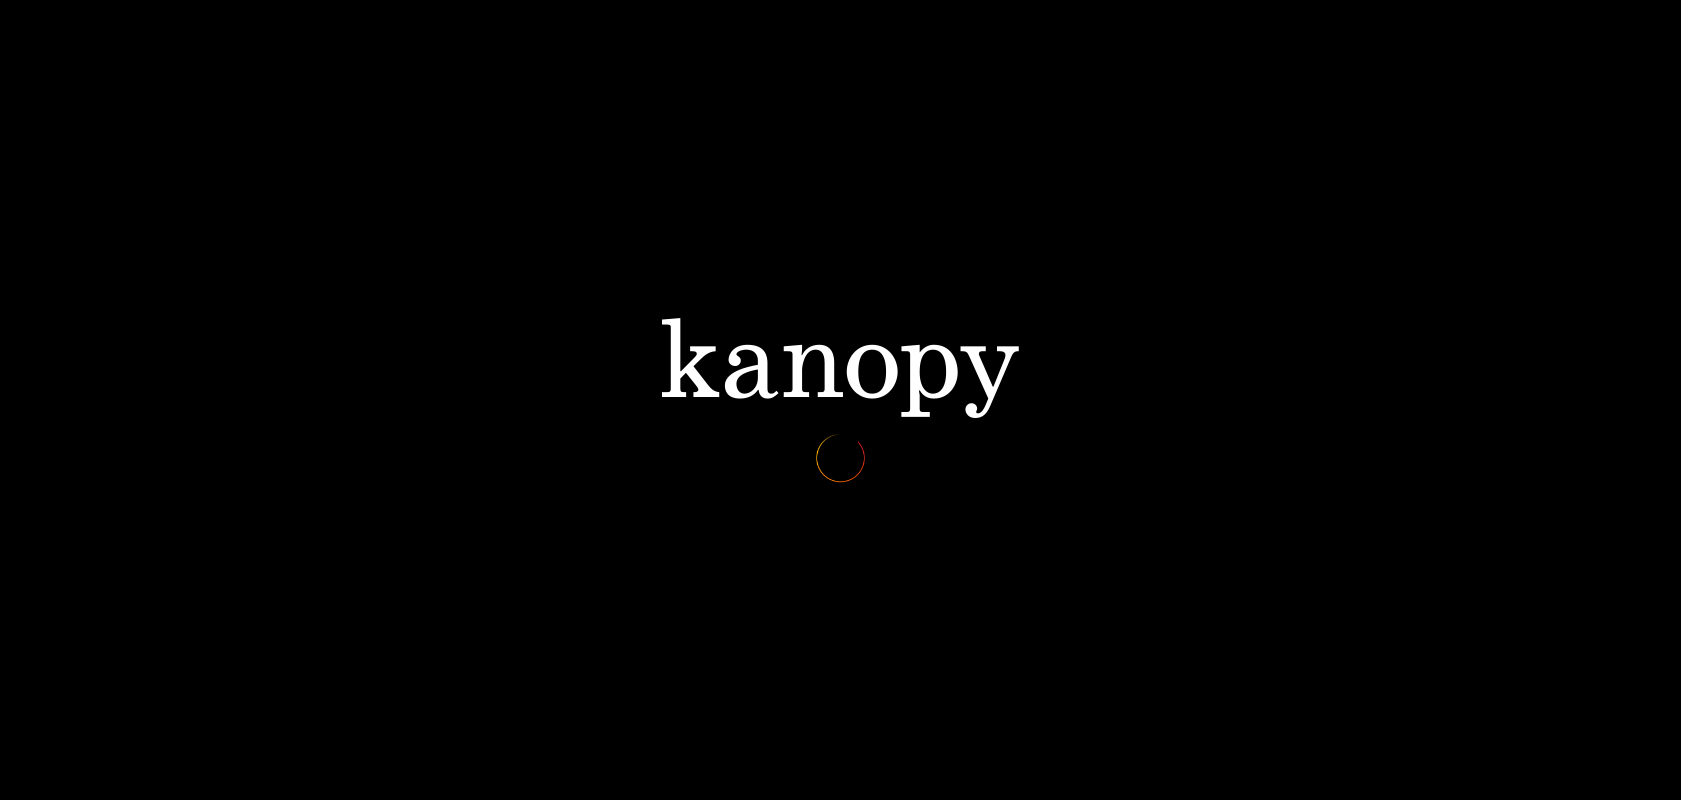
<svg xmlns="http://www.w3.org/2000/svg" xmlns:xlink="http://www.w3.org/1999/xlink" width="1681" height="800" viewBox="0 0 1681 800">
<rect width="100%" height="100%" fill="#000000"/>
<image xlink:href="image0.png" x="662" y="318" width="357" height="100"/>
<image xlink:href="image1.png" x="816" y="434" width="49" height="49"/>
</svg>
